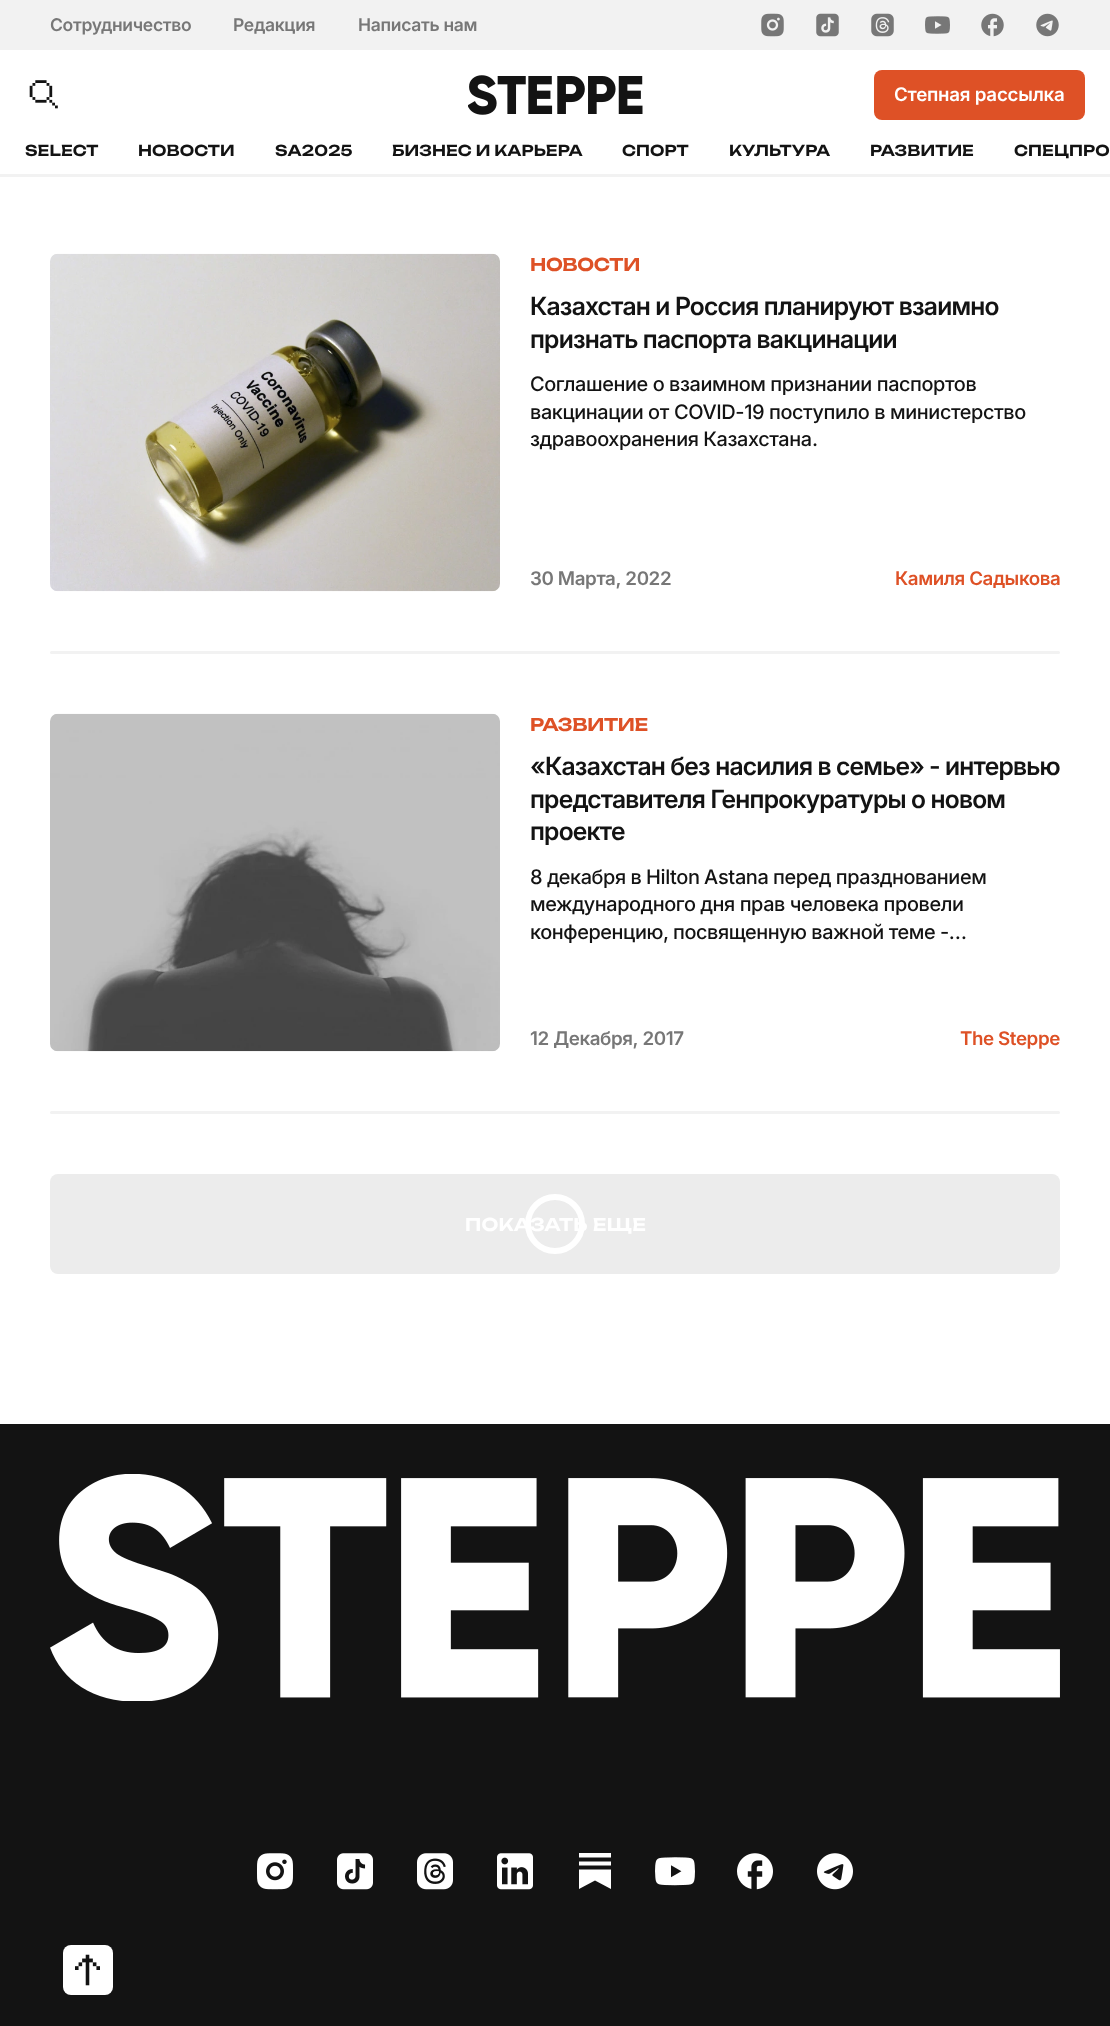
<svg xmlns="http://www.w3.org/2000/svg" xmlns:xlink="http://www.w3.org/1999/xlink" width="1110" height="2026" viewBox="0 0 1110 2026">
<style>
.cls-1{font:600 17.5px 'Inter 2';letter-spacing:-0.3px;fill:#777777}
.cls-2{font:600 18.75px 'Inter 2';letter-spacing:-0.25px;fill:#ffffff}
.cls-3{font:600 15px Unbounded;letter-spacing:0.1px;fill:#131313}
.cls-4{font:600 17.5px Unbounded;letter-spacing:-0.3px;fill:#de5126}
.cls-5{font:600 25px Inter;letter-spacing:-0.75px;fill:#131313}
.cls-6{font:500 20px Inter;letter-spacing:-0.4px;fill:#131313}
.cls-7{font:500 20px 'Inter 2';letter-spacing:-0.4px;fill:#131313}
.cls-8{font:600 18.75px 'Inter 2';letter-spacing:-0.4px;fill:#777777}
.cls-9{font:600 18.75px 'Inter 2';letter-spacing:-0.4px;fill:#de5126}
.cls-10{font:600 25px 'Inter 2';letter-spacing:-0.75px;fill:#131313}
.cls-11{font:600 17.5px Unbounded;letter-spacing:0.25px;fill:#ffffff}
</style>
<rect width="100%" height="100%" fill="#ffffff"/>
<rect fill="#f2f2f2" x="0" y="0" width="1110" height="50"/>
<image xlink:href="image0.png" x="761" y="13" width="23" height="24"/>
<image xlink:href="image1.png" x="816" y="13" width="23" height="24"/>
<image xlink:href="image2.png" x="871" y="13" width="23" height="24"/>
<image xlink:href="image3.png" x="925" y="16" width="25" height="18"/>
<image xlink:href="image4.png" x="981" y="13" width="23" height="24"/>
<image xlink:href="image5.png" x="1036" y="13" width="23" height="24"/>
<image xlink:href="image6.png" x="29" y="80" width="29" height="29"/>
<image xlink:href="image7.png" x="468" y="75" width="175" height="40"/>
<rect fill="#de5126" x="874" y="70" width="211" height="50" rx="8"/>
<rect fill="#f2f2f2" x="0" y="174" width="1110" height="3"/>
<image xlink:href="image8.png" x="50" y="253" width="450" height="339"/>
<rect fill="#f2f2f2" x="50" y="651" width="1010" height="3" rx="1.5"/>
<image xlink:href="image9.png" x="50" y="713" width="450" height="339"/>
<rect fill="#f2f2f2" x="50" y="1111" width="1010" height="3" rx="1.5"/>
<rect fill="#ececec" x="50" y="1174" width="1010" height="100" rx="8"/>
<circle fill="none" stroke="#ffffff" stroke-width="6" cx="555" cy="1224" r="27"/>
<rect fill="#131313" x="0" y="1424" width="1110" height="602"/>
<image xlink:href="image10.png" x="50" y="1474" width="1010" height="227"/>
<image xlink:href="image11.png" x="257" y="1853" width="36" height="37"/>
<image xlink:href="image12.png" x="337" y="1853" width="36" height="37"/>
<image xlink:href="image13.png" x="417" y="1853" width="36" height="37"/>
<image xlink:href="image14.png" x="497" y="1853" width="36" height="37"/>
<path fill="#ffffff" d="M611 1861.5H579V1865.5H611ZM579 1869.5V1889L595 1880.5L611 1889V1869.5ZM611 1853H579V1857.5H611Z"/>
<image xlink:href="image15.png" x="655" y="1857" width="40" height="29"/>
<image xlink:href="image16.png" x="737" y="1853" width="36" height="37"/>
<image xlink:href="image17.png" x="817" y="1853" width="36" height="37"/>
<rect fill="#ffffff" x="63" y="1945" width="50" height="50" rx="8"/>
<image xlink:href="image18.png" x="75" y="1954" width="25" height="32"/>
<text class="cls-1" x="50" y="31">Сотрудничество</text>
<text class="cls-1" x="233" y="31">Редакция</text>
<text class="cls-1" x="358" y="31">Написать нам</text>
<text class="cls-2" x="894" y="101">Степная рассылка</text>
<text class="cls-3" x="25" y="156">SELECT</text>
<text class="cls-3" x="138" y="156">НОВОСТИ</text>
<text class="cls-3" x="275" y="156">SA2025</text>
<text class="cls-3" x="392" y="156">БИЗНЕС И КАРЬЕРА</text>
<text class="cls-3" x="622" y="156">СПОРТ</text>
<text class="cls-3" x="729" y="156">КУЛЬТУРА</text>
<text class="cls-3" x="870" y="156">РАЗВИТИЕ</text>
<text class="cls-3" x="1014" y="156">СПЕЦПРО</text>
<text class="cls-4" x="530" y="271">НОВОСТИ</text>
<text class="cls-5"><tspan x="530" y="315">Казахстан и Россия планируют взаимно</tspan><tspan x="530" y="348">признать паспорта вакцинации</tspan></text>
<text class="cls-6"><tspan x="530" y="391">Соглашение о взаимном признании паспортов</tspan><tspan x="530" y="419">вакцинации от</tspan></text>
<text class="cls-7" x="674" y="419">COVID-19</text>
<text class="cls-6" x="769" y="419">поступило в министерство</text>
<text class="cls-6" x="530" y="446">здравоохранения Казахстана</text>
<text class="cls-7" x="812" y="446">.</text>
<text class="cls-8" x="530" y="585">30 Марта, 2022</text>
<text class="cls-9" x="895" y="585">Камиля Садыкова</text>
<text class="cls-4" x="530" y="731">РАЗВИТИЕ</text>
<text class="cls-10" x="530" y="775">«</text>
<text class="cls-5" x="545" y="775">Казахстан без насилия в семье</text>
<text class="cls-10" x="909" y="775">»</text>
<text class="cls-10" x="929" y="775">-</text>
<text class="cls-5" x="945" y="775">интервью</text>
<text class="cls-5"><tspan x="530" y="808">представителя Генпрокуратуры о новом</tspan><tspan x="530" y="840">проекте</tspan></text>
<text class="cls-7" x="530" y="884">8</text>
<text class="cls-6" x="547" y="884">декабря в</text>
<text class="cls-7" x="646" y="884">Hilton</text>
<text class="cls-6" x="704" y="884">A</text>
<text class="cls-7" x="718" y="884">stana</text>
<text class="cls-6" x="773" y="884">перед празднованием</text>
<text class="cls-6"><tspan x="530" y="911">международного дня прав человека провели</tspan><tspan x="530" y="939">конференцию</tspan></text>
<text class="cls-7" x="663" y="939">,</text>
<text class="cls-6" x="673" y="939">посвященную важной теме</text>
<text class="cls-7" x="940" y="939">-…</text>
<text class="cls-8" x="530" y="1045">12 Декабря, 2017</text>
<text class="cls-9" x="960" y="1045">The Steppe</text>
<text class="cls-11" x="465" y="1231" word-spacing="1">ПОКАЗАТЬ ЕЩЕ</text>
</svg>
